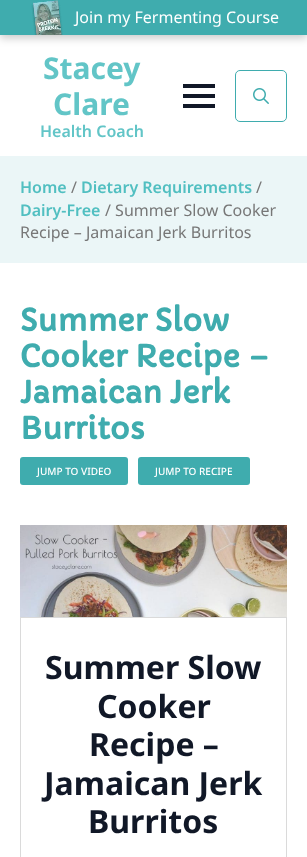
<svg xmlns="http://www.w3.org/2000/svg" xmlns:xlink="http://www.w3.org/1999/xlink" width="307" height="857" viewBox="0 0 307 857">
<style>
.cls-1{font:16px Noto Sans;fill:#ffffff}
.cls-2{font:bold 30px Noto Sans;fill:#62c5c7}
.cls-3{font:600 16px Noto Sans;fill:#62c5c7}
.cls-4{font:600 16px Noto Sans;fill:#51bfc1}
.cls-5{font:16px Noto Sans;fill:#777777}
.cls-6{font:bold 30px Capriola;fill:#3facae}
.cls-7{font:500 10px Noto Sans;fill:#ffffff}
.cls-8{font:bold 32px Noto Sans;fill:#111827}
</style>
<rect width="100%" height="100%" fill="#ffffff"/>
<rect fill="#000000" fill-opacity="0.21" filter="blur(4.5px)" x="0" y="3" width="307" height="35"/>
<rect fill="#3facae" x="0" y="0" width="307" height="35"/>
<image xlink:href="image0.png" x="31" y="0" width="32" height="35"/>
<rect fill="#111827" x="183" y="94" width="32" height="4"/>
<rect fill="#111827" x="183" y="84" width="32" height="4"/>
<rect fill="#111827" x="183" y="104" width="32" height="4"/>
<rect fill="none" stroke="#3facae" x="235.5" y="70.5" width="51" height="51" rx="4.5"/>
<image xlink:href="image1.png" x="253" y="88" width="16" height="16"/>
<rect fill="#ebf6f7" x="0" y="156" width="307" height="107"/>
<rect fill="#3facae" x="20" y="457" width="108" height="28" rx="3"/>
<rect fill="#3facae" x="138" y="457" width="112" height="28" rx="3"/>
<image xlink:href="image2.png" x="20" y="525" width="267" height="92"/>
<rect fill="#dadada" x="20" y="617" width="267" height="1"/>
<rect fill="#dadada" x="286" y="617" width="1" height="240"/>
<rect fill="#dadada" x="20" y="617" width="1" height="240"/>
<text class="cls-1" x="75" y="23">Join my Fermenting Course</text>
<text class="cls-2" x="43" y="79">Stacey</text>
<text class="cls-2" x="53" y="115">Clare</text>
<text class="cls-3" x="40" y="137">Health Coach</text>
<text class="cls-4" x="20" y="193">Home</text>
<text class="cls-5" x="71" y="193">/</text>
<text class="cls-4" x="81" y="193">Dietary Requirements</text>
<text class="cls-5" x="256" y="193">/</text>
<text class="cls-4" x="20" y="216">Dairy-Free</text>
<text class="cls-5" x="105" y="216">/ Summer Slow Cooker</text>
<text class="cls-5" x="20" y="238">Recipe – Jamaican Jerk Burritos</text>
<text class="cls-6"><tspan x="20" y="331">Summer Slow</tspan><tspan x="20" y="367">Cooker Recipe –</tspan><tspan x="20" y="403">Jamaican Jerk</tspan><tspan x="20" y="439">Burritos</tspan></text>
<text class="cls-7" x="37" y="475">JUMP TO VIDEO</text>
<text class="cls-7" x="155" y="475">JUMP TO RECIPE</text>
<text class="cls-8" x="45" y="679">Summer Slow</text>
<text class="cls-8" x="97" y="718">Cooker</text>
<text class="cls-8" x="89" y="756">Recipe –</text>
<text class="cls-8" x="44" y="795">Jamaican Jerk</text>
<text class="cls-8" x="88" y="833">Burritos</text>
</svg>
